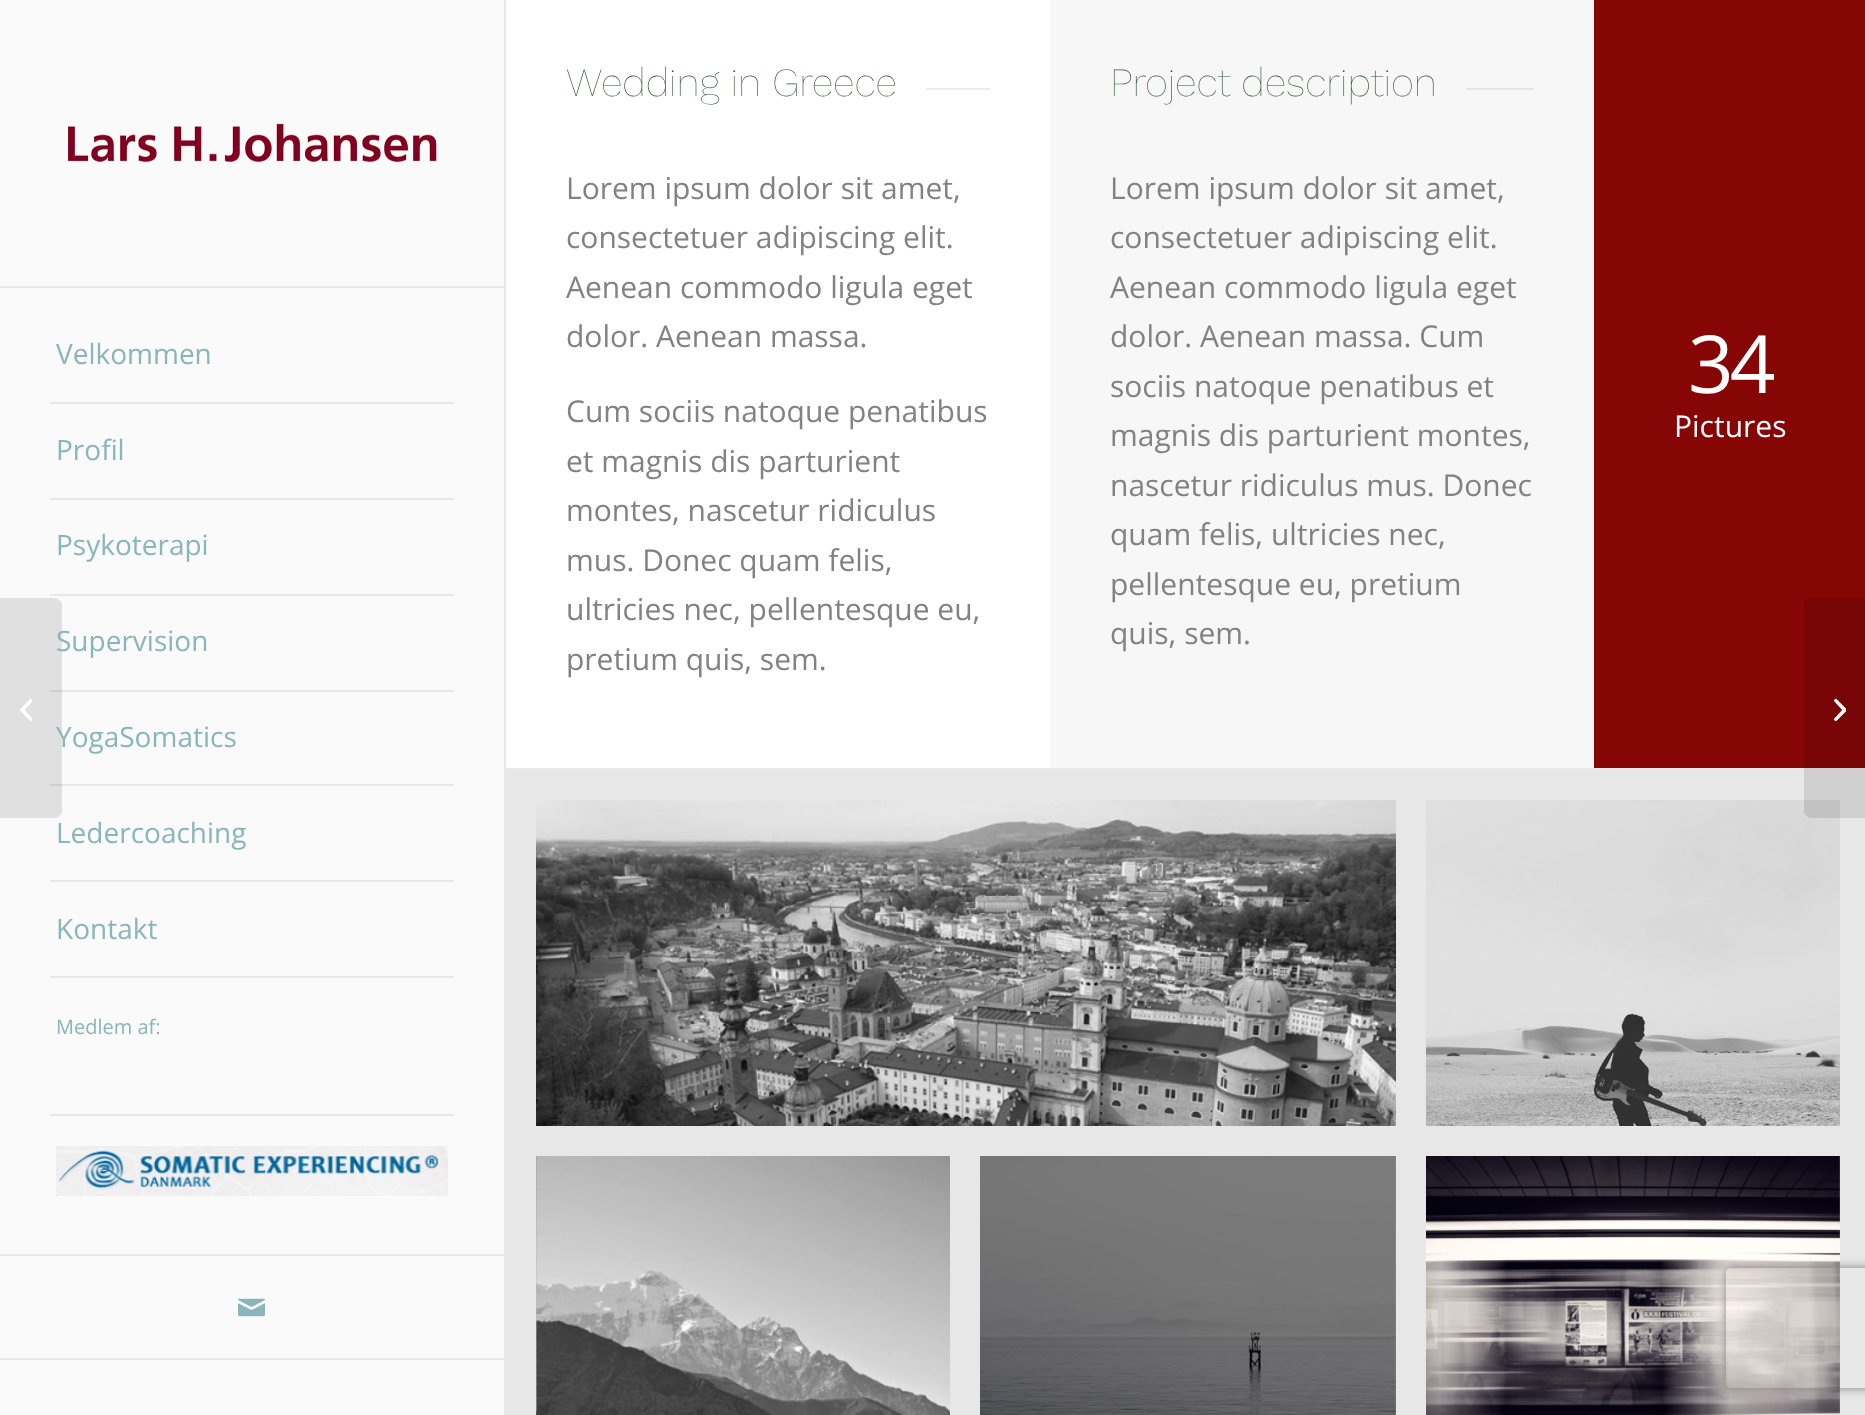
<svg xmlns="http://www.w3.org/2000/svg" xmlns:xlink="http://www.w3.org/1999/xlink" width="1865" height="1415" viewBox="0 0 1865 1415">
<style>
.cls-1{font:28px Open Sans;fill:#8ab5ba}
.cls-2{font:20px Open Sans;fill:#8ab5ba}
.cls-3{font:100 40px Work Sans;fill:#324f3b}
.cls-4{font:30px Open Sans;fill:#828282}
.cls-5{font:80px Open Sans;letter-spacing:-4px;fill:#ffffff}
.cls-6{font:30px Open Sans;fill:#ffffff}
</style>
<defs>
<clipPath id="clip1"><path d="M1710 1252H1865V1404H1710ZM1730 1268H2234C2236 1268 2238 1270 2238 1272V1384C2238 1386 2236 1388 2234 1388H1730C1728 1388 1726 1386 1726 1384V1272C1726 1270 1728 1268 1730 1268Z" clip-rule="evenodd"/></clipPath>
</defs>
<rect width="100%" height="100%" fill="#fafafa"/>
<rect fill="#e8e8e8" x="50" y="690" width="404" height="2"/>
<rect fill="#e8e8e8" x="50" y="784" width="404" height="2"/>
<path fill="#000000" fill-opacity="0.1" d="M0 598H54C58.5 598 62 601.5 62 606V810C62 814.5 58.5 818 54 818H0Z"/>
<image xlink:href="image0.png" x="20" y="699" width="12" height="22"/>
<rect fill="#e8e8e8" x="0" y="1358" width="504" height="2"/>
<rect fill="#e8e8e8" x="0" y="286" width="504" height="2"/>
<image xlink:href="image1.png" x="68" y="123" width="369" height="40"/>
<rect fill="#e8e8e8" x="50" y="402" width="404" height="2"/>
<rect fill="#e8e8e8" x="50" y="498" width="404" height="2"/>
<rect fill="#e8e8e8" x="50" y="594" width="404" height="2"/>
<rect fill="#e8e8e8" x="50" y="880" width="404" height="2"/>
<rect fill="#e8e8e8" x="50" y="976" width="404" height="2"/>
<rect fill="#e8e8e8" x="50" y="1114" width="404" height="2"/>
<image xlink:href="image2.png" x="56" y="1146" width="392" height="50"/>
<rect fill="#e8e8e8" x="0" y="1254" width="504" height="2"/>
<image xlink:href="image3.png" x="238" y="1298" width="27" height="19"/>
<rect fill="#e8e8e8" x="504" y="0" width="2" height="1415"/>
<rect fill="#ffffff" x="506" y="0" width="544" height="768"/>
<rect fill="#ececec" x="926" y="88" width="64" height="2"/>
<rect fill="#f7f7f7" x="1050" y="0" width="544" height="768"/>
<rect fill="#e5e5e5" x="1466" y="88" width="68" height="2"/>
<rect fill="#860606" x="1594" y="0" width="271" height="768"/>
<rect fill="#e8e8e8" x="506" y="768" width="1359" height="2"/>
<rect fill="#e7e7e7" x="506" y="770" width="1359" height="645"/>
<image xlink:href="image4.png" x="536" y="800" width="860" height="326"/>
<image xlink:href="image5.png" x="1426" y="800" width="414" height="326"/>
<image xlink:href="image6.png" x="536" y="1156" width="414" height="259"/>
<image xlink:href="image7.png" x="980" y="1156" width="416" height="259"/>
<image xlink:href="image8.png" x="1426" y="1156" width="414" height="259"/>
<path fill="#000000" fill-opacity="0.1" d="M1812 598H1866V818H1812C1807.5 818 1804 814.5 1804 810V606C1804 601.5 1807.5 598 1812 598Z"/>
<image xlink:href="image9.png" x="1834" y="698" width="12" height="24"/>
<g clip-path="url(#clip1)">
<rect fill="#808080" filter="blur(5px)" x="1726" y="1268" width="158" height="120" rx="4"/>
</g>
<text class="cls-1" x="56" y="364">Velkommen</text>
<text class="cls-1" x="56" y="460">Profil</text>
<text class="cls-1" x="56" y="555">Psykoterapi</text>
<text class="cls-1" x="56" y="651">Supervision</text>
<text class="cls-1" x="56" y="747">YogaSomatics</text>
<text class="cls-1" x="56" y="843">Ledercoaching</text>
<text class="cls-1" x="56" y="939">Kontakt</text>
<text class="cls-2" x="56" y="1034">Medlem af:</text>
<text class="cls-3" x="566" y="96">Wedding in Greece</text>
<text class="cls-4"><tspan x="566" y="199">Lorem ipsum dolor sit amet,</tspan><tspan x="566" y="248">consectetuer adipiscing elit.</tspan><tspan x="566" y="298">Aenean commodo ligula eget</tspan><tspan x="566" y="347">dolor. Aenean massa.</tspan></text>
<text class="cls-4"><tspan x="566" y="422">Cum sociis natoque penatibus</tspan><tspan x="566" y="472">et magnis dis parturient</tspan><tspan x="566" y="521">montes, nascetur ridiculus</tspan><tspan x="566" y="571">mus. Donec quam felis,</tspan><tspan x="566" y="620">ultricies nec, pellentesque eu,</tspan><tspan x="566" y="670">pretium quis, sem.</tspan></text>
<text class="cls-3" x="1110" y="96">Project description</text>
<text class="cls-4"><tspan x="1110" y="199">Lorem ipsum dolor sit amet,</tspan><tspan x="1110" y="248">consectetuer adipiscing elit.</tspan><tspan x="1110" y="298">Aenean commodo ligula eget</tspan><tspan x="1110" y="347">dolor. Aenean massa. Cum</tspan><tspan x="1110" y="397">sociis natoque penatibus et</tspan><tspan x="1110" y="446">magnis dis parturient montes,</tspan><tspan x="1110" y="496">nascetur ridiculus mus. Donec</tspan><tspan x="1110" y="545">quam felis, ultricies nec,</tspan><tspan x="1110" y="595">pellentesque eu, pretium</tspan><tspan x="1110" y="644">quis, sem.</tspan></text>
<text class="cls-5" x="1688" y="393">34</text>
<text class="cls-6" x="1674" y="437">Pictures</text>
</svg>
